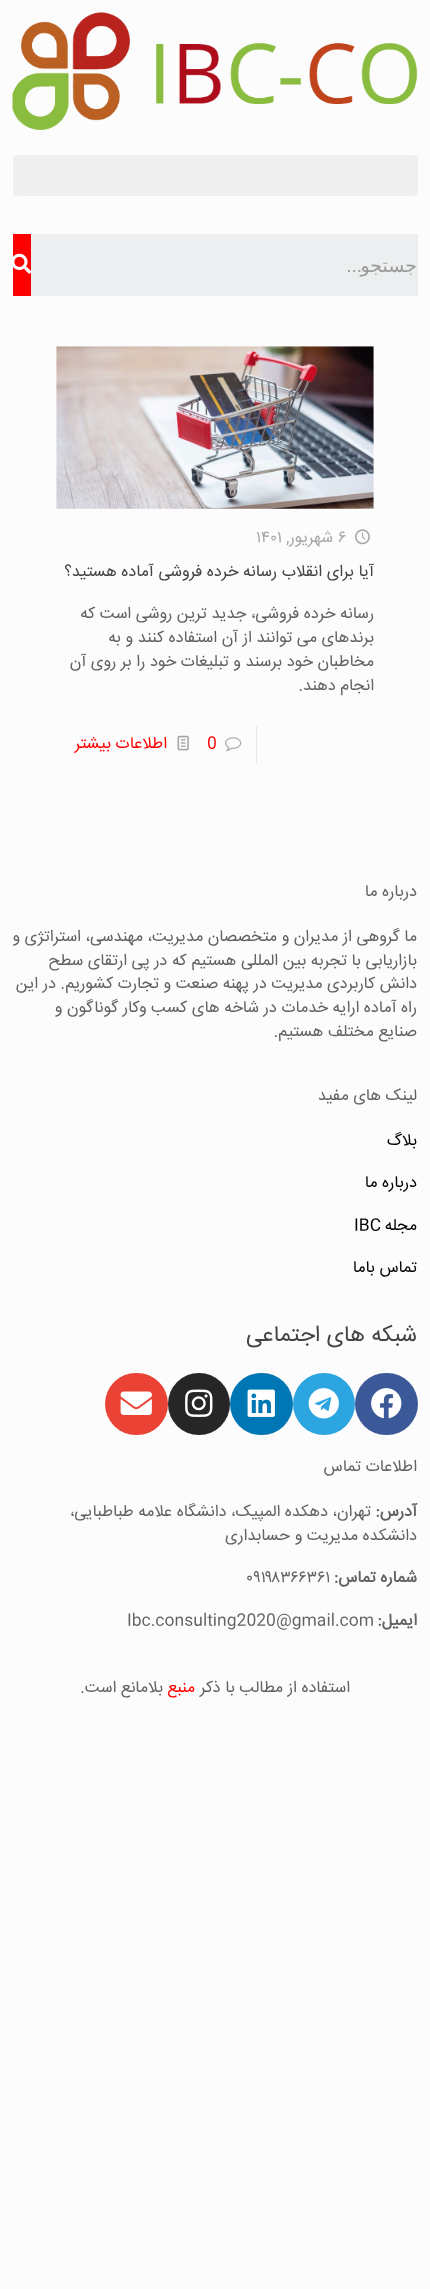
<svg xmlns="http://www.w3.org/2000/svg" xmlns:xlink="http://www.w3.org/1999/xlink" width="430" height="2289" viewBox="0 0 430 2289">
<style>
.cls-1{font:19px Liberation Sans;direction:rtl;fill:#999a9a}
.cls-2{font:19px DejaVu Sans;direction:rtl;fill:#999a9a}
.cls-3{font:16.25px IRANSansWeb;fill:#a8a8a8}
.cls-4{font:16.25px IRANSansWeb;direction:rtl;fill:#a8a8a8}
.cls-5{font:16.25px IRANSansWeb;direction:rtl;fill:#444444}
.cls-6{font:16.25px IRANSansWeb;direction:rtl;fill:#626262}
.cls-7{font:16.25px IRANSansWeb;fill:#ff0000}
.cls-8{font:16.25px IRANSansWeb;direction:rtl;fill:#ff0000}
.cls-9{font:16.25px IRANSansWeb;direction:rtl;fill:#000000}
.cls-10{font:16.25px IRANSansWeb;fill:#000000}
.cls-11{font:22.5px IRANSansWeb;direction:rtl;fill:#444444}
.cls-12{font:bold 16.25px IRANSansWeb;direction:rtl;fill:#626262}
.cls-13{font:16.25px IRANSansWeb;fill:#626262}
</style>
<rect width="100%" height="100%" fill="#fcfcfc"/>
<image xlink:href="image0.png" x="12" y="12" width="406" height="118"/>
<rect fill="#efefef" x="13" y="155" width="405" height="41" rx="4"/>
<rect fill="#eceeef" x="31" y="234" width="387" height="62"/>
<rect fill="#ff0000" stroke="#f70000" x="13.5" y="234.5" width="17" height="61"/>
<image xlink:href="image1.png" x="13" y="253" width="18" height="21"/>
<image xlink:href="image2.png" x="56" y="346" width="318" height="163"/>
<image xlink:href="image3.png" x="355" y="529" width="15" height="16"/>
<rect fill="#e8e8e8" x="256" y="726" width="1" height="38"/>
<image xlink:href="image4.png" x="225" y="737" width="17" height="15"/>
<image xlink:href="image5.png" x="177" y="735" width="12" height="16"/>
<rect fill="#3b5998" x="355" y="1373" width="63" height="62" rx="31"/>
<image xlink:href="image6.png" x="371" y="1388" width="31" height="31"/>
<circle fill="#2ca5e0" cx="324" cy="1404" r="31"/>
<image xlink:href="image7.png" x="308" y="1388" width="31" height="31"/>
<rect fill="#0077b5" x="230" y="1373" width="63" height="62" rx="31"/>
<image xlink:href="image8.png" x="247" y="1389" width="28" height="28"/>
<circle fill="#262626" cx="199" cy="1404" r="31"/>
<image xlink:href="image9.png" x="185" y="1389" width="28" height="28"/>
<rect fill="#ea4335" x="105" y="1373" width="63" height="62" rx="31"/>
<image xlink:href="image10.png" x="120" y="1391" width="32" height="24"/>
<text class="cls-1" x="362" y="272">...</text>
<text class="cls-2" x="417" y="272">جستجو</text>
<text class="cls-3" x="338" y="542">۶</text>
<text class="cls-4" x="333" y="542">شهریور,</text>
<text class="cls-3" x="256" y="542">۱۴۰۱</text>
<text class="cls-5" x="374" y="576">آیا برای انقلاب رسانه خرده فروشی آماده هستید؟</text>
<text class="cls-6"><tspan x="374" y="618">رسانه خرده فروشی، جدید ترین روشی است که</tspan><tspan x="374" y="642">برندهای می توانند از آن استفاده کنند و به</tspan><tspan x="374" y="666">مخاطبان خود برسند و تبلیغات خود را بر روی آن</tspan><tspan x="374" y="690">انجام دهند.</tspan></text>
<text class="cls-7" x="207" y="748">0</text>
<text class="cls-8" x="167" y="748">اطلاعات بیشتر</text>
<text class="cls-6" x="417" y="896">درباره ما</text>
<text class="cls-6"><tspan x="417" y="941">ما گروهی از مدیران و متخصصان مدیریت، مهندسی، استراتژی و</tspan><tspan x="417" y="965">بازاریابی با تجربه بین المللی هستیم که در پی ارتقای سطح</tspan><tspan x="417" y="988">دانش کاربردی مدیریت در پهنه صنعت و تجارت کشوریم. در این</tspan><tspan x="417" y="1012">راه آماده ارایه خدمات در شاخه های کسب وکار گوناگون و</tspan><tspan x="417" y="1036">صنایع مختلف هستیم.</tspan></text>
<text class="cls-6" x="417" y="1100">لینک های مفید</text>
<text class="cls-9" x="417" y="1145">بلاگ</text>
<text class="cls-9" x="417" y="1187">درباره ما</text>
<text class="cls-9" x="417" y="1230">مجله</text>
<text class="cls-10" x="354" y="1230">IBC</text>
<text class="cls-9" x="417" y="1272">تماس باما</text>
<text class="cls-11" x="417" y="1341">شبکه های اجتماعی</text>
<text class="cls-6" x="417" y="1471">اطلاعات تماس</text>
<text class="cls-12" x="417" y="1516">آدرس:</text>
<text class="cls-6" x="371" y="1516">تهران، دهکده المپیک، دانشگاه علامه طباطبایی،</text>
<text class="cls-6" x="417" y="1540">دانشکده مدیریت و حسابداری</text>
<text class="cls-12" x="417" y="1582">شماره تماس:</text>
<text class="cls-13" x="246" y="1582">۰۹۱۹۸۳۶۶۳۶۱</text>
<text class="cls-12" x="417" y="1625">ایمیل:</text>
<text class="cls-13" x="127" y="1625">Ibc.consulting2020@gmail.com</text>
<text class="cls-6" x="350" y="1692">استفاده از مطالب با ذکر</text>
<text class="cls-8" x="195" y="1692">منبع</text>
<text class="cls-6" x="163" y="1692">بلامانع است.</text>
</svg>
